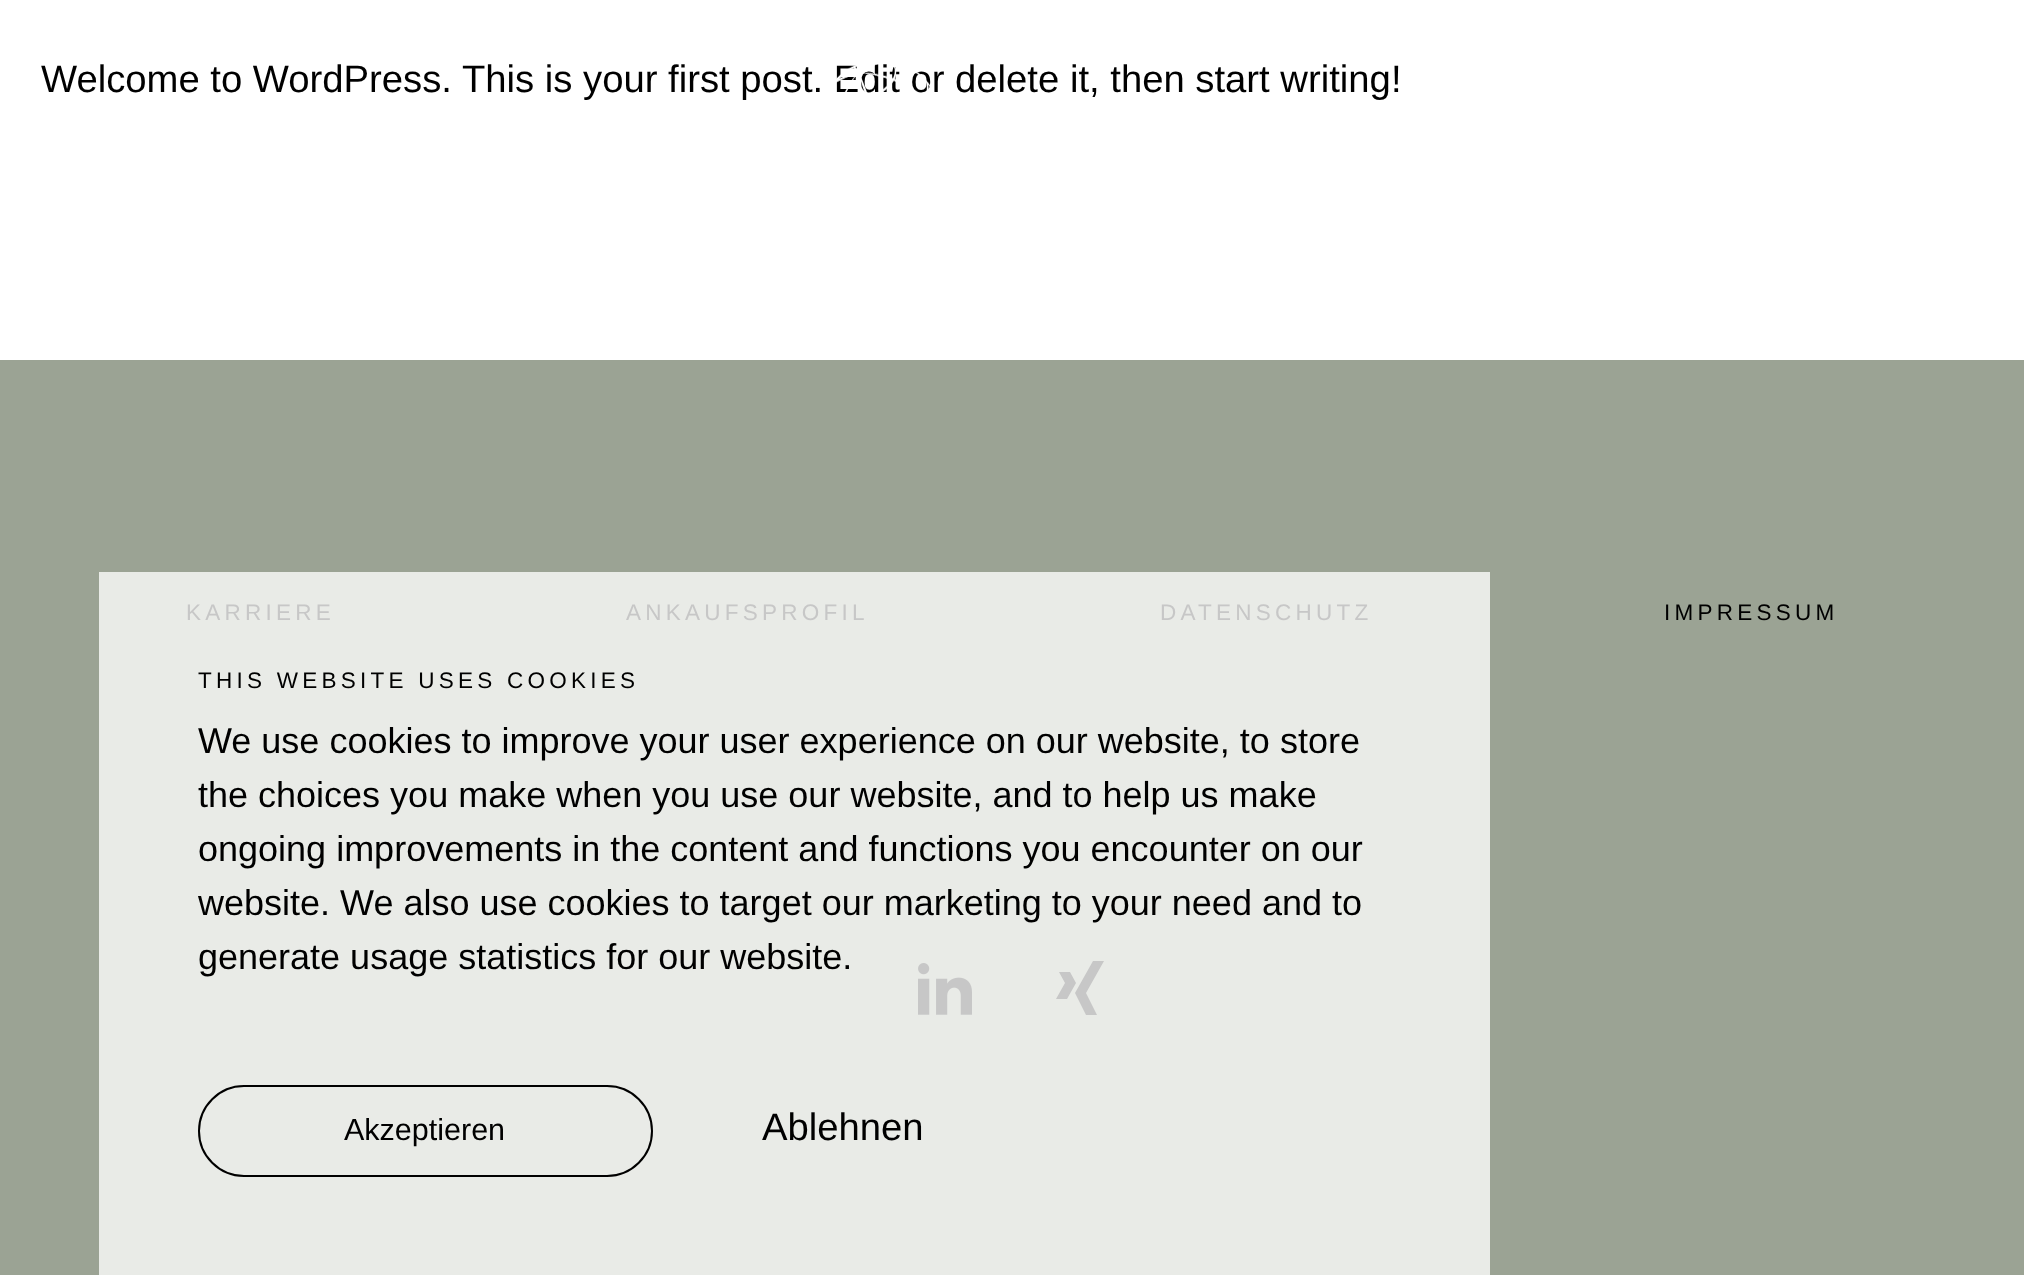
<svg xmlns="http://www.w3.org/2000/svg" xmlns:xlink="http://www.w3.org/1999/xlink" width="2024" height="1275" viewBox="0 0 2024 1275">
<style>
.cls-1{font:38.25px Liberation Sans;fill:#000000}
.cls-2{font:22.5px Liberation Sans;letter-spacing:4.25px;fill:#c7c7c7}
.cls-3{font:22.5px Liberation Sans;letter-spacing:4.25px;fill:#000000}
.cls-4{font:36px Liberation Sans;fill:#000000}
.cls-5{font:30.5px Liberation Sans;fill:#000000}
</style>
<rect width="100%" height="100%" fill="#ffffff"/>
<rect fill="#9ba394" x="0" y="360" width="2024" height="915"/>
<rect fill="#e9ebe7" x="99" y="572" width="1391" height="703"/>
<image xlink:href="image1.png" x="918" y="963" width="54" height="52"/>
<path fill="#c7c7c7" d="M1086 1015L1075 993L1093 961H1104L1086 993L1097 1015ZM1070 972H1059L1065 983L1056 999H1067L1076 983Z"/>
<rect fill="none" stroke="#000000" stroke-width="2" x="199" y="1086" width="453" height="90" rx="45"/>
<text class="cls-1" x="41" y="92">Welcome to WordPress. This is your first post. Edit or delete it, then start writing!</text>
<image xlink:href="image0.png" x="836" y="64" width="99" height="29"/>
<text class="cls-2" x="186" y="620">KARRIERE</text>
<text class="cls-2" x="626" y="620">ANKAUFSPROFIL</text>
<text class="cls-2" x="1160" y="620">DATENSCHUTZ</text>
<text class="cls-3" x="1664" y="620">IMPRESSUM</text>
<text class="cls-3" x="198" y="688">THIS WEBSITE USES COOKIES</text>
<text class="cls-4"><tspan x="198" y="753">We use cookies to improve your user experience on our website, to store</tspan><tspan x="198" y="807">the choices you make when you use our website, and to help us make</tspan><tspan x="198" y="861">ongoing improvements in the content and functions you encounter on our</tspan><tspan x="198" y="915">website. We also use cookies to target our marketing to your need and to</tspan><tspan x="198" y="969">generate usage statistics for our website.</tspan></text>
<text class="cls-5" x="344" y="1140">Akzeptieren</text>
<text class="cls-1" x="762" y="1140">Ablehnen</text>
</svg>
